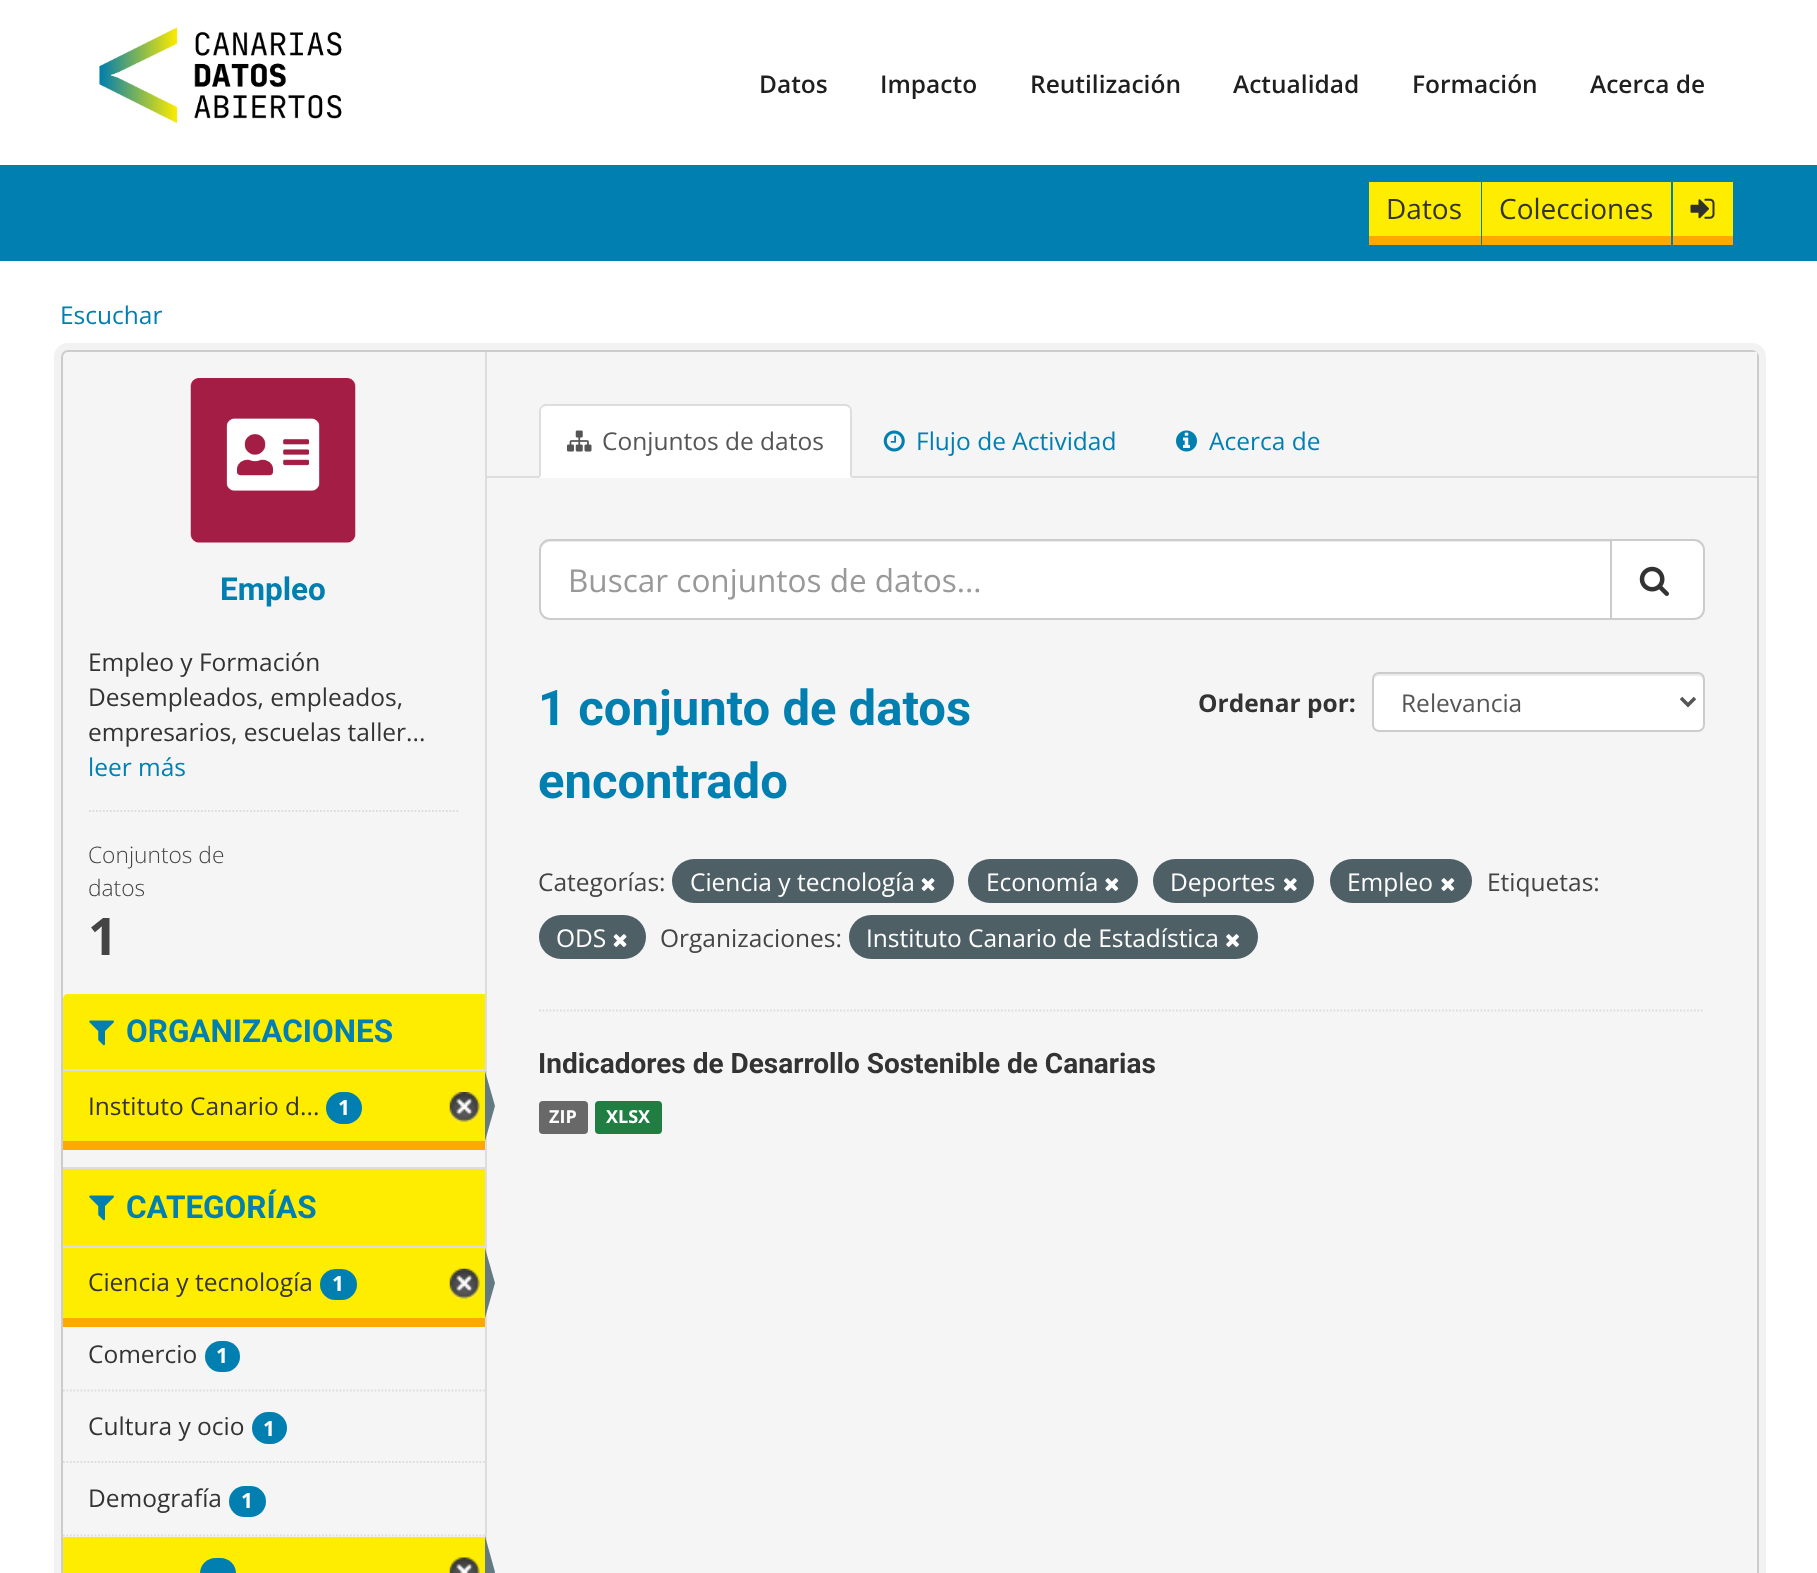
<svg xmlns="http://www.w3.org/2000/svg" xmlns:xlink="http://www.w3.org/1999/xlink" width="1817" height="1573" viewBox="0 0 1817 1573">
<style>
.cls-1{font:600 24.5px Open Sans;fill:#1f1f1f}
.cls-2{font:28px Open Sans;fill:#333333}
.cls-3{font:24.5px Open Sans;fill:#017fb0}
.cls-4{font:bold 31.5px Roboto;fill:#017fb0}
.cls-5{font:24.5px Open Sans;fill:#333333}
.cls-6{font:300 22.75px Open Sans;fill:#444444}
.cls-7{font:bold 52px Open Sans;fill:#444444}
.cls-8{font:bold 21px Open Sans;fill:#ffffff}
.cls-9{font:24.5px Open Sans;fill:#555555}
.cls-10{font:31.5px Open Sans;fill:#999999}
.cls-11{font:bold 49px Roboto;fill:#017fb0}
.cls-12{font:bold 24.5px Open Sans;fill:#333333}
.cls-13{font:24.5px Open Sans;fill:#444444}
.cls-14{font:24.5px Open Sans;fill:#ffffff}
.cls-15{font:bold 28px Roboto;fill:#333333}
.cls-16{font:bold 18px Open Sans;fill:#ffffff}
</style>
<rect width="100%" height="100%" fill="#ffffff"/>
<image xlink:href="image0.png" x="99" y="27" width="243" height="96"/>
<rect fill="#017fb0" x="0" y="165" width="1817" height="96"/>
<path fill="#ffa900" d="M1369 236V245H1481V191H1480V236Z"/>
<rect fill="#ffed00" x="1369" y="182" width="112" height="54"/>
<path fill="#ffa900" d="M1482 191V245H1671V236H1482Z"/>
<rect fill="#ffed00" x="1482" y="182" width="189" height="54"/>
<path fill="#ffa900" d="M1673 236V245H1733V191H1732V236Z"/>
<rect fill="#ffed00" x="1673" y="182" width="60" height="54"/>
<image xlink:href="image1.png" x="1690" y="198" width="25" height="21"/>
<rect fill="none" stroke="#f2f2f2" stroke-width="7" x="57.5" y="346.5" width="1705" height="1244" rx="10.5"/>
<rect fill="#f5f5f5" stroke="#cccccc" stroke-width="2" x="62" y="351" width="1696" height="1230" rx="6"/>
<image xlink:href="image2.png" x="190" y="378" width="166" height="165"/>
<path fill="none" stroke="#dddddd" stroke-width="1.8" stroke-dasharray="1.75 1.75" d="M89 811H458.5"/>
<path fill="#ffed00" d="M68 994H485V1071H63V999C63 996 65 994 68 994Z"/>
<rect fill="#dddddd" x="63" y="1069" width="422" height="2"/>
<image xlink:href="image3.png" x="89" y="1020" width="25" height="26"/>
<path fill="#ffa900" d="M63 1141V1150H485V1080V1141Z"/>
<rect fill="#ffed00" x="63" y="1071" width="422" height="70"/>
<rect fill="#017fb0" x="326" y="1092" width="36" height="32" rx="16"/>
<image xlink:href="image4.png" x="449" y="1092" width="31" height="30"/>
<rect fill="#dddddd" x="485" y="352" width="2" height="1191"/>
<path fill="#647a82" d="M485 1141V1071L495 1106Z"/>
<rect fill="#ffed00" x="63" y="1169" width="422" height="77"/>
<rect fill="#dddddd" x="63" y="1167" width="422" height="2"/>
<rect fill="#dddddd" x="63" y="1246" width="422" height="2"/>
<image xlink:href="image3.png" x="89" y="1195" width="25" height="26"/>
<path fill="#ffa900" d="M63 1318V1327H485V1257V1318Z"/>
<rect fill="#ffed00" x="63" y="1248" width="422" height="70"/>
<rect fill="#017fb0" x="320" y="1269" width="37" height="31" rx="15.5"/>
<image xlink:href="image5.png" x="449" y="1268" width="31" height="31"/>
<path fill="#647a82" d="M485 1318V1248L495 1283Z"/>
<path fill="none" stroke="#dddddd" stroke-width="1.8" stroke-dasharray="1.75 1.75" d="M63 1390.5H485"/>
<rect fill="#017fb0" x="205" y="1341" width="35" height="31" rx="15.5"/>
<path fill="none" stroke="#dddddd" stroke-width="1.8" stroke-dasharray="1.75 1.75" d="M63 1462H485"/>
<rect fill="#017fb0" x="252" y="1412" width="35" height="32" rx="16"/>
<path fill="none" stroke="#dddddd" stroke-width="1.8" stroke-dasharray="1.75 1.75" d="M63 1535.5H485"/>
<rect fill="#017fb0" x="229" y="1486" width="37" height="31" rx="15.5"/>
<rect fill="#ffed00" x="63" y="1537" width="422" height="36"/>
<rect fill="#017fb0" x="200" y="1558" width="36" height="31" rx="15.5"/>
<image xlink:href="image6.png" x="449" y="1557" width="31" height="16"/>
<path fill="#647a82" d="M485 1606V1536L495 1572Z"/>
<rect fill="#f5f5f5" x="1753" y="352" width="4" height="4"/>
<rect fill="#dddddd" x="487" y="476" width="1270" height="2"/>
<path fill="#ffffff" d="M546 404H845C849 404 852 407 852 411V478H539V411C539 407 542 404 546 404Z"/>
<path fill="#dddddd" d="M546 406C544 406 543 407 542 408L541 406L544 404H847C848 405 849 405 850 406L849 408C848 407 847 406 845 406Z"/>
<path fill="#dddddd" d="M850 406C851 407 852 409 852 411V478L850 476V411C850 410 850 408 849 408Z"/>
<path fill="#dddddd" d="M539 478L541 476V411C541 410 541 408 542 408L541 406C540 407 539 409 539 411Z"/>
<image xlink:href="image7.png" x="567" y="430" width="25" height="22"/>
<image xlink:href="image8.png" x="883" y="430" width="22" height="22"/>
<image xlink:href="image9.png" x="1176" y="430" width="21" height="22"/>
<path fill="none" stroke="#dddddd" stroke-width="1.8" stroke-dasharray="1.75 1.75" d="M539 1010.5H1704.5"/>
<path fill="#ffffff" d="M550 539H1612V620H550C544 620 539 615 539 609V550C539 544 544 539 550 539Z"/>
<path fill="#ececec" d="M550 542H1610V541H550C544 541 541 546 541 551C541 546 545 542 550 542Z"/>
<path fill="none" stroke="#cccccc" stroke-width="2" d="M550 540H1611V619H550C544.5 619 540 614.5 540 609V550C540 544.5 544.5 540 550 540Z"/>
<path fill="#ffffff" stroke="#cccccc" stroke-width="2" d="M1611 540H1694C1699.5 540 1704 544.5 1704 550V609C1704 614.5 1699.5 619 1694 619H1611Z"/>
<image xlink:href="image10.png" x="1639" y="566" width="30" height="30"/>
<rect fill="#ffffff" x="1372" y="672" width="333" height="60" rx="7"/>
<path fill="#ececec" d="M1379 676H1698C1700 676 1703 678 1703 681V679C1703 676 1701 674 1698 674H1379C1376 674 1374 676 1374 679V681C1374 678 1376 676 1379 676Z"/>
<rect fill="none" stroke="#cccccc" stroke-width="2" x="1373" y="673" width="331" height="58" rx="6"/>
<path fill="none" stroke="#555555" stroke-width="3.5" d="M1681 698L1688 705L1695 698"/>
<rect fill="#4e5f65" x="672" y="859" width="282" height="44" rx="22"/>
<image xlink:href="image11.png" x="921" y="878" width="14" height="13"/>
<rect fill="#4e5f65" x="968" y="859" width="170" height="44" rx="22"/>
<image xlink:href="image12.png" x="1105" y="878" width="14" height="13"/>
<rect fill="#4e5f65" x="1153" y="859" width="161" height="44" rx="22"/>
<image xlink:href="image13.png" x="1283" y="878" width="14" height="13"/>
<rect fill="#4e5f65" x="1330" y="859" width="142" height="44" rx="22"/>
<image xlink:href="image12.png" x="1441" y="878" width="14" height="13"/>
<rect fill="#4e5f65" x="539" y="915" width="107" height="44" rx="22"/>
<image xlink:href="image14.png" x="613" y="934" width="14" height="13"/>
<rect fill="#4e5f65" x="849" y="915" width="409" height="44" rx="22"/>
<image xlink:href="image15.png" x="1226" y="934" width="13" height="13"/>
<rect fill="#686868" x="539" y="1101" width="49" height="33" rx="4"/>
<rect fill="#207e42" x="595" y="1101" width="67" height="33" rx="4"/>
<text class="cls-1" x="759" y="93">Datos</text>
<text class="cls-1" x="880" y="93">Impacto</text>
<text class="cls-1" x="1030" y="93">Reutilización</text>
<text class="cls-1" x="1233" y="93">Actualidad</text>
<text class="cls-1" x="1412" y="93">Formación</text>
<text class="cls-1" x="1590" y="93">Acerca de</text>
<text class="cls-2" x="1386" y="219">Datos</text>
<text class="cls-2" x="1499" y="219">Colecciones</text>
<text class="cls-3" x="60" y="324">Escuchar</text>
<text class="cls-4" x="220" y="600">Empleo</text>
<text class="cls-5"><tspan x="88" y="671">Empleo y Formación</tspan><tspan x="88" y="706">Desempleados, empleados,</tspan><tspan x="88" y="741">empresarios, escuelas taller...</tspan></text>
<text class="cls-3" x="88" y="776">leer más</text>
<text class="cls-6"><tspan x="88" y="863">Conjuntos de</tspan><tspan x="88" y="896">datos</tspan></text>
<text class="cls-7" x="88" y="955">1</text>
<text class="cls-4" x="126" y="1042">ORGANIZACIONES</text>
<text class="cls-5" x="88" y="1115">Instituto Canario d...</text>
<text class="cls-8" x="338" y="1115">1</text>
<text class="cls-4" x="126" y="1218">CATEGORÍAS</text>
<text class="cls-5" x="88" y="1291">Ciencia y tecnología</text>
<text class="cls-8" x="332" y="1291">1</text>
<text class="cls-5" x="88" y="1363">Comercio</text>
<text class="cls-8" x="216" y="1363">1</text>
<text class="cls-5" x="88" y="1435">Cultura y ocio</text>
<text class="cls-8" x="263" y="1436">1</text>
<text class="cls-5" x="88" y="1507">Demografía</text>
<text class="cls-8" x="241" y="1508">1</text>
<text class="cls-9" x="602" y="450">Conjuntos de datos</text>
<text class="cls-3" x="916" y="450">Flujo de Actividad</text>
<text class="cls-3" x="1209" y="450">Acerca de</text>
<text class="cls-10" x="568" y="592">Buscar conjuntos de datos...</text>
<text class="cls-11"><tspan x="538" y="725">1 conjunto de datos</tspan><tspan x="538" y="798">encontrado</tspan></text>
<text class="cls-12" x="1198" y="712">Ordenar por:</text>
<text class="cls-9" x="1401" y="712">Relevancia</text>
<text class="cls-13" x="538" y="891">Categorías:</text>
<text class="cls-14" x="690" y="891">Ciencia y tecnología</text>
<text class="cls-14" x="986" y="891">Economía</text>
<text class="cls-14" x="1170" y="891">Deportes</text>
<text class="cls-14" x="1347" y="891">Empleo</text>
<text class="cls-13" x="1487" y="891">Etiquetas:</text>
<text class="cls-14" x="556" y="947">ODS</text>
<text class="cls-13" x="660" y="947">Organizaciones:</text>
<text class="cls-14" x="866" y="947">Instituto Canario de Estadística</text>
<text class="cls-15" x="538" y="1073">Indicadores de Desarrollo Sostenible de Canarias</text>
<text class="cls-16" x="549" y="1123">ZIP</text>
<text class="cls-16" x="606" y="1123">XLSX</text>
</svg>
